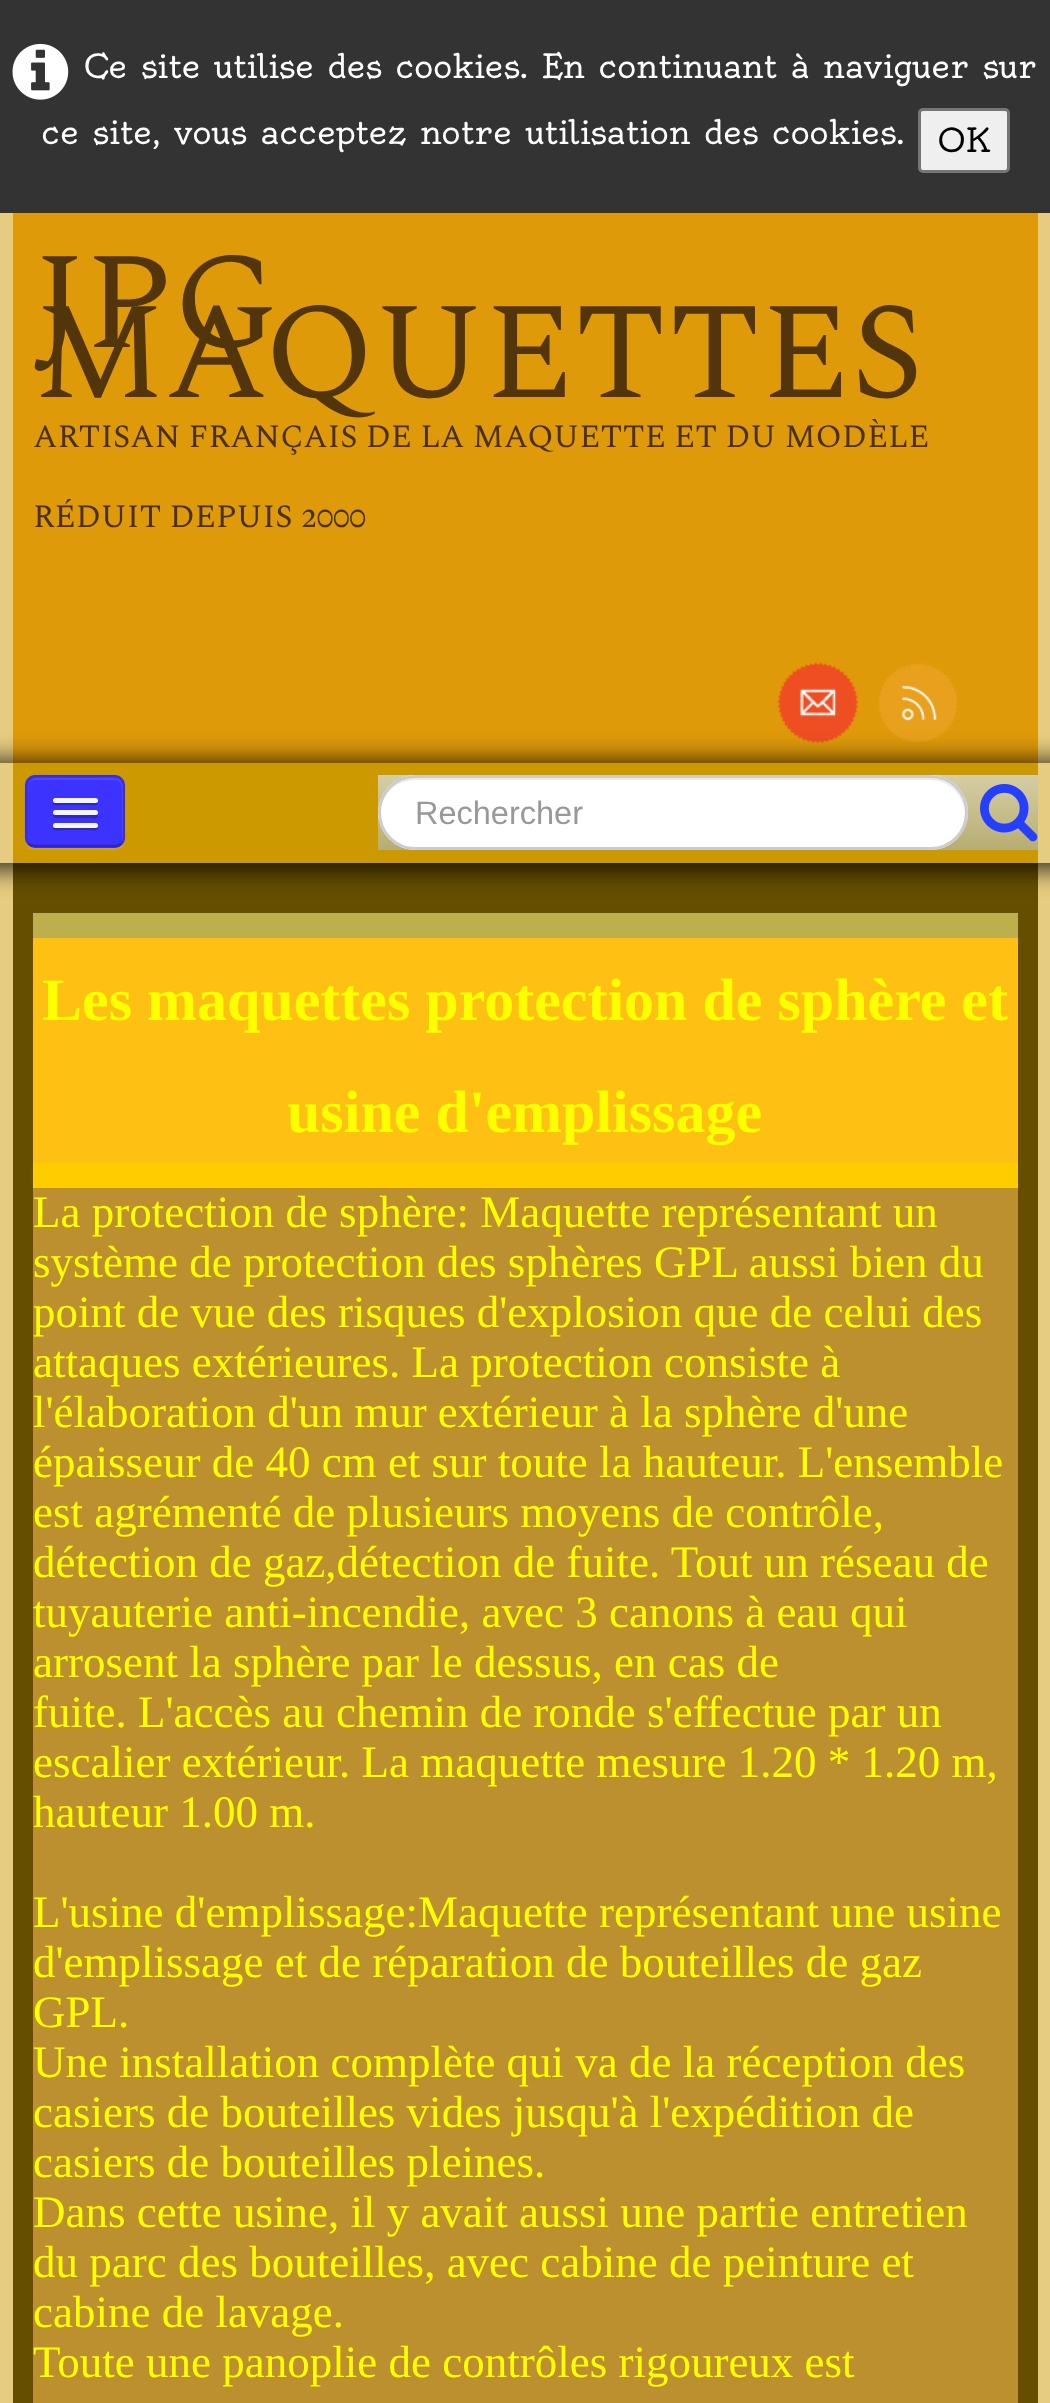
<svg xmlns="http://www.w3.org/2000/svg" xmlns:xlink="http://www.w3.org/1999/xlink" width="1050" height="2403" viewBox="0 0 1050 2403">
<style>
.cls-1{font:32.5px Oldenburg;fill:#ffffff}
.cls-2{font:32.5px Oldenburg;fill:#000000}
.cls-3{font:137.5px Spectral SC;fill:#52350a}
.cls-4{font:32.5px Spectral SC;fill:#493018}
.cls-5{font:32.5px Liberation Sans;fill:#999999}
.cls-6{font:bold 60px Liberation Serif;fill:#ffff00}
.cls-7{font:45px Liberation Serif;fill:#ffff00}
</style>
<defs>
<clipPath id="clip1"><path d="M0 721H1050V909H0ZM-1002 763H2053C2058.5 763 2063 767.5 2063 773V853C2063 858.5 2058.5 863 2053 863H-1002C-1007.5 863-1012 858.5-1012 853V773C-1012 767.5-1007.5 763-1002 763Z" clip-rule="evenodd"/></clipPath>
<linearGradient id="g1" gradientUnits="userSpaceOnUse" x1="708" y1="775" x2="708" y2="850"><stop offset="0" stop-color="#d5cda5"/><stop offset="0.4" stop-color="#cac191"/><stop offset="1" stop-color="#b7ad71"/></linearGradient>
</defs>
<rect width="100%" height="100%" fill="#cc9900"/>
<rect fill="#333333" x="0" y="0" width="1050" height="213"/>
<image xlink:href="image0.png" x="12" y="43" width="57" height="57"/>
<rect fill="#efefef" stroke="#767676" stroke-width="3" x="919.5" y="109.5" width="89" height="62" rx="3.5"/>
<rect fill="#e6cc80" x="1038" y="213" width="12" height="2190"/>
<rect fill="#e6cc80" x="0" y="213" width="13" height="2190"/>
<rect fill="#df9a0a" x="13" y="213" width="1025" height="550"/>
<image xlink:href="image1.png" x="777" y="662" width="81" height="81"/>
<image xlink:href="image2.png" x="878" y="662" width="80" height="81"/>
<rect fill="#664e00" x="13" y="863" width="1025" height="1540"/>
<g clip-path="url(#clip1)">
<rect fill="#000000" fill-opacity="0.75" filter="blur(12.5px)" x="-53" y="760" width="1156" height="110" rx="15"/>
</g>
<path fill="#d0a113" d="M25 838C25 853 36 850 48 850H102C114 850 125 853 125 838C125 843 121 848 115 848H35C29 848 25 843 25 838Z"/>
<rect fill="#3d33ff" x="25" y="775" width="100" height="73" rx="10"/>
<path fill="#5047ff" d="M35 780H116C124 782 122 792 122 797V841C124 837 123 832 123 828V812C123 773 128 778 89 778H49C39 778 28 775 28 788C28 783 31 780 35 780Z"/>
<path fill="none" stroke="#2e26bf" stroke-width="2.5" d="M121 843.5C119.5 845.5 117.5 846 115 846H35C32.5 846 30.5 845.5 29 843.5"/>
<path fill="none" stroke="#000000" stroke-opacity="0.1" stroke-width="2.5" d="M29 843.5C27 842 26 840 26 837.5V785C26 782.5 27 780.5 29 779C30.5 777 32.5 776 35 776H115C117.5 776 119.5 777 121 779C123 780.5 124 782.5 124 785V837.5C124 840 123 842 121 843.5"/>
<path fill="#2e26bf" d="M53 802C51 807 61 805 62 805H89C90 805 97 807 98 803L97 801L95 802H55Z"/>
<rect fill="#f5f5f5" x="53" y="798" width="45" height="5" rx="2.5"/>
<path fill="#2e26bf" d="M53 814C51 819 62 818 62 818H89C90 818 97 820 98 816L97 814L95 815C92 815 55 816 53 814Z"/>
<rect fill="#f5f5f5" x="53" y="810" width="45" height="5" rx="2.5"/>
<path fill="#2e26bf" d="M53 827C51 832 61 830 62 830H89C90 830 97 832 98 828L97 826L95 827H55Z"/>
<rect fill="#f5f5f5" x="53" y="823" width="45" height="5" rx="2.5"/>
<rect fill="url(#g1)" x="378" y="775" width="660" height="75"/>
<rect fill="#ffffff" x="378" y="775" width="590" height="75" rx="37.5"/>
<path fill="#ececec" d="M415 780H930C949 780 964 795 965 814C966 794 949 778 930 778H415C396 778 379 794 380 814C381 795 396 780 415 780Z"/>
<rect fill="none" stroke="#cccccc" stroke-width="3" x="379.5" y="776.5" width="587" height="72" rx="36"/>
<image xlink:href="image3.png" x="980" y="784" width="58" height="58"/>
<rect fill="#bdb04c" x="33" y="913" width="985" height="25"/>
<rect fill="#ffcc00" x="33" y="1163" width="985" height="25"/>
<rect fill="#ffc014" x="33" y="938" width="985" height="225"/>
<rect fill="#bc8f2f" x="33" y="1188" width="985" height="1215"/>
<text class="cls-1" x="84" y="78">Ce site utilise des cookies. En continuant à naviguer sur</text>
<text class="cls-1" x="41" y="144">ce site, vous acceptez notre utilisation des cookies.</text>
<text class="cls-2" x="938" y="152">OK</text>
<text class="cls-3"><tspan x="33" y="347">JPG</tspan><tspan x="33" y="397">MAQUETTES</tspan></text>
<text class="cls-4" x="33" y="447">ARTISAN FRANÇAIS DE LA MAQUETTE ET DU MODÈLE</text>
<text class="cls-4" x="33" y="527">RÉDUIT DEPUIS 2000</text>
<text class="cls-5" x="415" y="824">Rechercher</text>
<text class="cls-6" x="42" y="1020">Les maquettes protection de sphère et</text>
<text class="cls-6" x="287" y="1132">usine d'emplissage</text>
<text class="cls-7"><tspan x="33" y="1227">La protection de sphère: Maquette représentant un</tspan><tspan x="33" y="1277">système de protection des sphères GPL aussi bien du</tspan><tspan x="33" y="1327">point de vue des risques d'explosion que de celui des</tspan><tspan x="33" y="1377">attaques extérieures. La protection consiste à</tspan><tspan x="33" y="1427">l'élaboration d'un mur extérieur à la sphère d'une</tspan><tspan x="33" y="1477">épaisseur de 40 cm et sur toute la hauteur. L'ensemble</tspan><tspan x="33" y="1527">est agrémenté de plusieurs moyens de contrôle,</tspan><tspan x="33" y="1577">détection de gaz,détection de fuite. Tout un réseau de</tspan><tspan x="33" y="1627">tuyauterie anti-incendie, avec 3 canons à eau qui</tspan><tspan x="33" y="1677">arrosent la sphère par le dessus, en cas de</tspan><tspan x="33" y="1727">fuite. L'accès au chemin de ronde s'effectue par un</tspan><tspan x="33" y="1777">escalier extérieur. La maquette mesure 1.20 * 1.20 m,</tspan><tspan x="33" y="1827">hauteur 1.00 m.</tspan></text>
<text class="cls-7"><tspan x="33" y="1927">L'usine d'emplissage:Maquette représentant une usine</tspan><tspan x="33" y="1977">d'emplissage et de réparation de bouteilles de gaz</tspan><tspan x="33" y="2027">GPL.</tspan><tspan x="33" y="2077">Une installation complète qui va de la réception des</tspan><tspan x="33" y="2127">casiers de bouteilles vides jusqu'à l'expédition de</tspan><tspan x="33" y="2177">casiers de bouteilles pleines.</tspan><tspan x="33" y="2227">Dans cette usine, il y avait aussi une partie entretien</tspan><tspan x="33" y="2277">du parc des bouteilles, avec cabine de peinture et</tspan><tspan x="33" y="2327">cabine de lavage.</tspan><tspan x="33" y="2377">Toute une panoplie de contrôles rigoureux est</tspan></text>
</svg>
